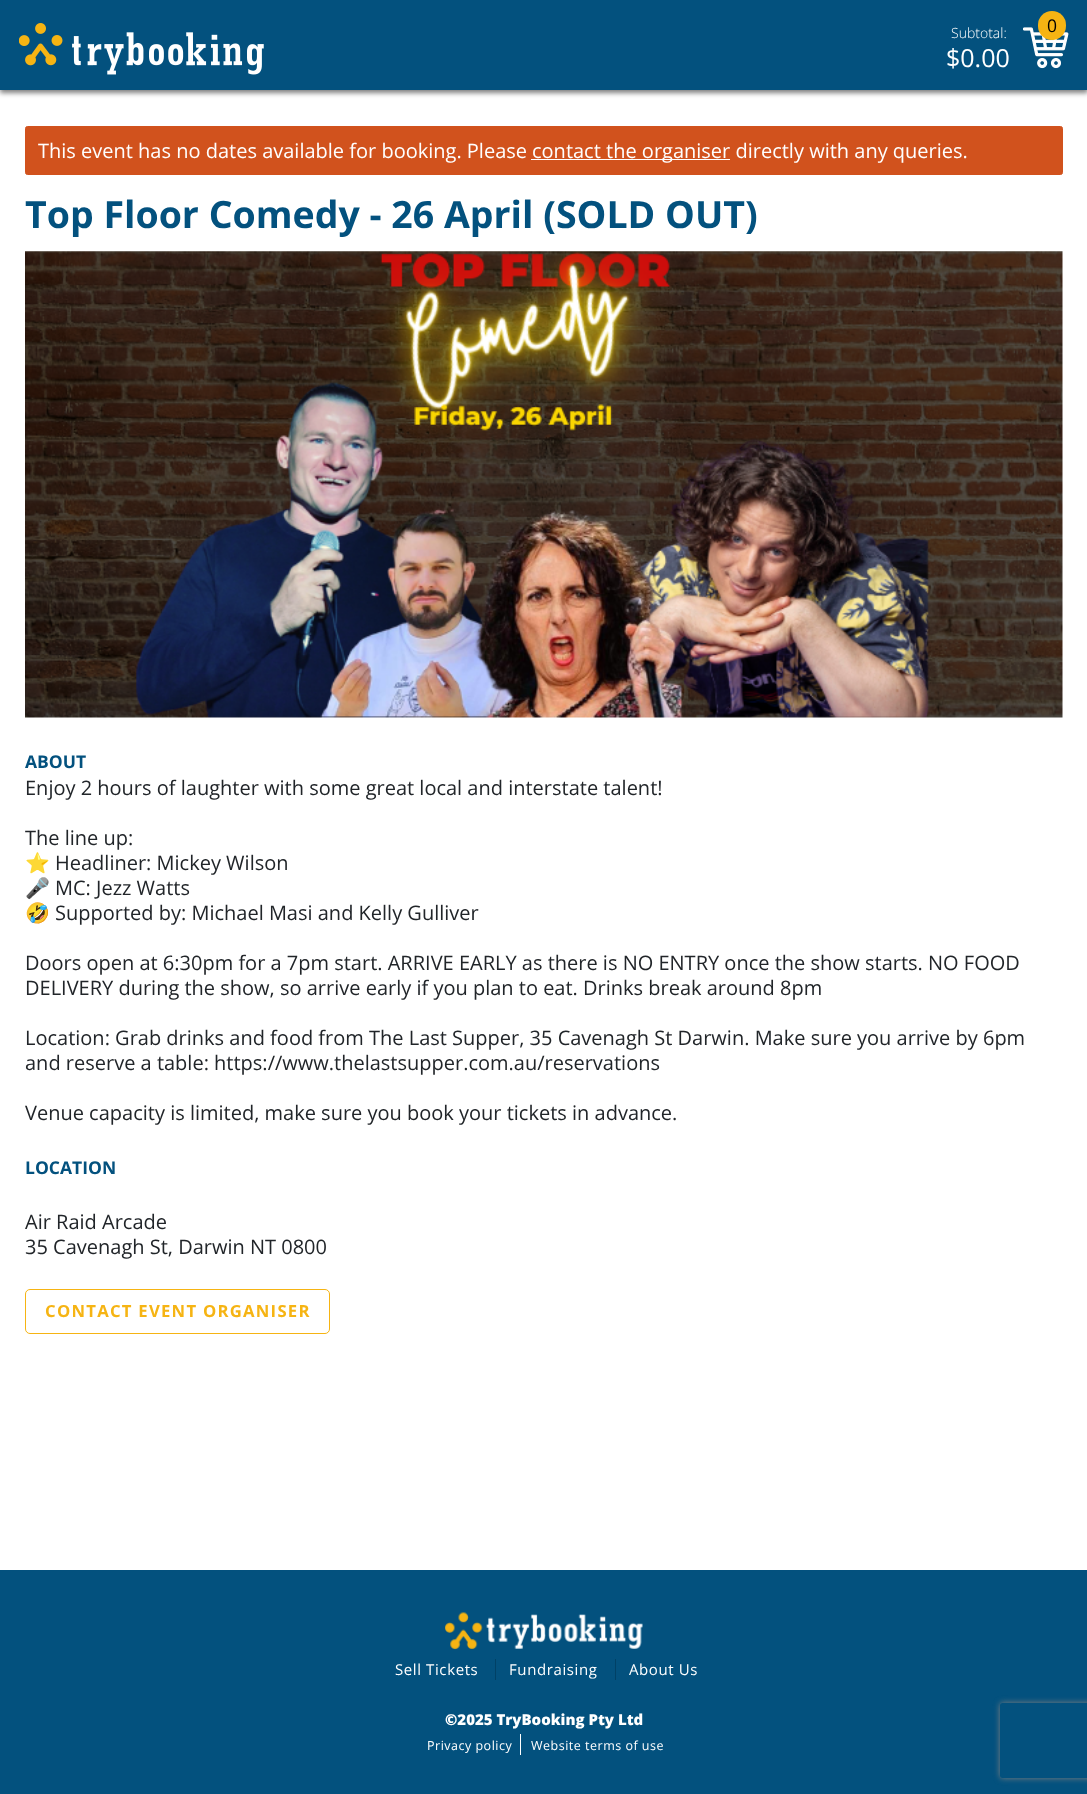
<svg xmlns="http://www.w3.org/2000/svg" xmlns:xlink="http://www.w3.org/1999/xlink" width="1087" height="1794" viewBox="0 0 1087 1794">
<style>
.cls-1{font:300 14px Open Sans;fill:#ffffff}
.cls-2{font:25px Open Sans;fill:#ffffff}
.cls-3{font:17.5px Open Sans;fill:#000000}
.cls-4{font:20px Open Sans;fill:#ffffff}
.cls-5{font:bold 37.5px Open Sans;fill:#03517e}
.cls-6{font:bold 17.5px Open Sans;fill:#03517e}
.cls-7{font:20px Open Sans;fill:#212529}
.cls-8{font:20px Noto Color Emoji;fill:#212529}
.cls-9{font:bold 16.7px Open Sans;letter-spacing:1.25px;fill:#f6b413}
.cls-10{font:15px Open Sans;letter-spacing:0.6px;fill:#ffffff}
.cls-11{font:800 15px Open Sans;fill:#ffffff}
.cls-12{font:12.5px Open Sans;letter-spacing:0.5px;fill:#ffffff}
</style>
<defs>
<clipPath id="clip1"><path d="M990 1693H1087V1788H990ZM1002.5 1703H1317.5C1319 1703 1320 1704 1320 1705.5V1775.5C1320 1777 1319 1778 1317.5 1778H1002.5C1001 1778 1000 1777 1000 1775.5V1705.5C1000 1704 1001 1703 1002.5 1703Z" clip-rule="evenodd"/></clipPath>
</defs>
<rect width="100%" height="100%" fill="#ffffff"/>
<rect fill="#000000" fill-opacity="0.5" filter="blur(2.5px)" x="0" y="3" width="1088" height="90"/>
<rect fill="#03517e" x="0" y="0" width="1087" height="90"/>
<image xlink:href="image0.png" x="19" y="23" width="245" height="52"/>
<image xlink:href="image1.png" x="1023" y="27" width="46" height="42"/>
<rect fill="#f6b413" x="1038" y="11" width="28" height="29" rx="14"/>
<rect fill="#d1521d" stroke="#d1521d" x="25.5" y="126.5" width="1037" height="48" rx="2"/>
<rect fill="#ffffff" x="531" y="159" width="199" height="1"/>
<image xlink:href="image2.png" x="25" y="251" width="1038" height="467"/>
<rect fill="none" stroke="#f6b413" x="25.5" y="1289.5" width="304" height="44" rx="4.5"/>
<rect fill="#03517e" x="0" y="1570" width="1087" height="224"/>
<image xlink:href="image3.png" x="445" y="1612" width="38" height="38"/>
<image xlink:href="image4.png" x="486" y="1614" width="157" height="35"/>
<rect fill="#004166" x="495" y="1659" width="1" height="21"/>
<rect fill="#004166" x="615" y="1659" width="1" height="21"/>
<rect fill="#ffffff" x="520" y="1734" width="1" height="21"/>
<g clip-path="url(#clip1)">
<rect fill="#808080" filter="blur(3px)" x="1000" y="1703" width="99" height="75" rx="2.5"/>
</g>
<text class="cls-1" x="951" y="38">Subtotal:</text>
<text class="cls-2" x="946" y="67">$0.00</text>
<text class="cls-3" x="1047" y="32">0</text>
<text class="cls-4" x="38" y="158">This event has no dates available for booking. Please</text>
<text class="cls-4" x="532" y="158">contact the organiser directly with any queries.</text>
<text class="cls-5" x="25" y="228">Top Floor Comedy - 26 April (SOLD OUT)</text>
<text class="cls-6" x="25" y="768">ABOUT</text>
<text class="cls-7" x="25" y="795">Enjoy 2 hours of laughter with some great local and interstate talent!</text>
<text class="cls-7" x="25" y="845">The line up:</text>
<text class="cls-8" x="25" y="870">⭐</text>
<text class="cls-7" x="55" y="870">Headliner: Mickey Wilson</text>
<text class="cls-8" x="25" y="895">🎤</text>
<text class="cls-7" x="55" y="895">MC: Jezz Watts</text>
<text class="cls-8" x="25" y="920">🤣</text>
<text class="cls-7" x="55" y="920">Supported by: Michael Masi and Kelly Gulliver</text>
<text class="cls-7"><tspan x="25" y="970">Doors open at 6:30pm for a 7pm start. ARRIVE EARLY as there is NO ENTRY once the show starts. NO FOOD</tspan><tspan x="25" y="995">DELIVERY during the show, so arrive early if you plan to eat. Drinks break around 8pm</tspan></text>
<text class="cls-7"><tspan x="25" y="1045">Location: Grab drinks and food from The Last Supper, 35 Cavenagh St Darwin. Make sure you arrive by 6pm</tspan><tspan x="25" y="1070">and reserve a table: https://www.thelastsupper.com.au/reservations</tspan></text>
<text class="cls-7" x="25" y="1120">Venue capacity is limited, make sure you book your tickets in advance.</text>
<text class="cls-6" x="25" y="1174">LOCATION</text>
<text class="cls-7"><tspan x="25" y="1229">Air Raid Arcade</tspan><tspan x="25" y="1254">35 Cavenagh St, Darwin NT 0800</tspan></text>
<text class="cls-9" x="45" y="1317">CONTACT EVENT ORGANISER</text>
<text class="cls-10" x="395" y="1675">Sell Tickets</text>
<text class="cls-10" x="509" y="1675">Fundraising</text>
<text class="cls-10" x="629" y="1675">About Us</text>
<text class="cls-11" x="445" y="1725">©2025 TryBooking Pty Ltd</text>
<text class="cls-12" x="427" y="1750">Privacy policy</text>
<text class="cls-12" x="531" y="1750">Website terms of use</text>
</svg>
